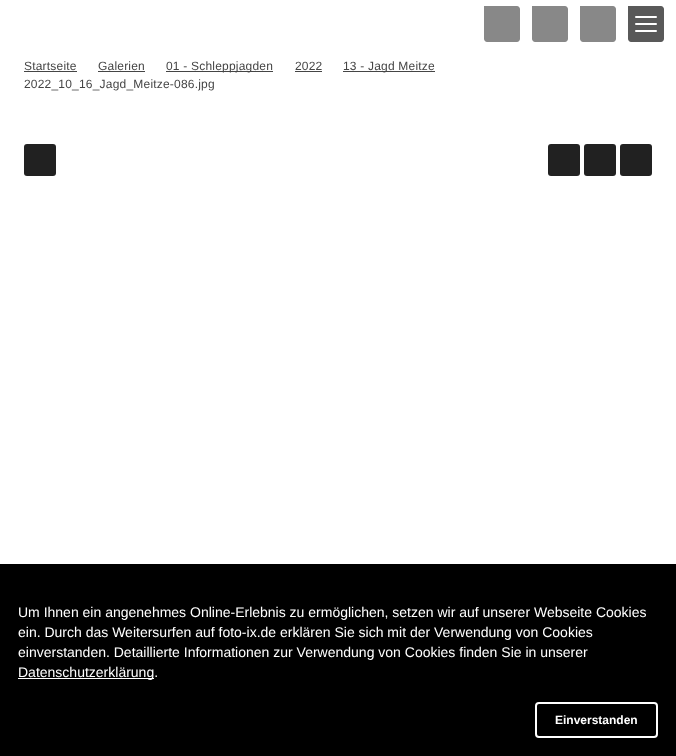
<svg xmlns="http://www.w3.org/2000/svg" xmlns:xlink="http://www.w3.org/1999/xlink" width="676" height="756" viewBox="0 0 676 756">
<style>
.cls-1{font:12px Liberation Sans;letter-spacing:0.2px;fill:#454545}
.cls-2{font:14px Liberation Sans;fill:#ffffff}
.cls-3{font:bold 12px Liberation Sans;fill:#ffffff}
</style>
<rect width="100%" height="100%" fill="#ffffff"/>
<path fill="#595959" d="M628 6H661C662.5 6 664 7.5 664 9V39C664 40.5 662.5 42 661 42H631C629.5 42 628 40.5 628 39Z"/>
<rect fill="#ffffff" x="635" y="16" width="22" height="2" rx="1"/>
<rect fill="#ffffff" x="635" y="23" width="22" height="2" rx="1"/>
<rect fill="#ffffff" x="635" y="30" width="22" height="2" rx="1"/>
<path fill="#888888" d="M484 6H517C518.5 6 520 7.5 520 9V39C520 40.5 518.5 42 517 42H487C485.5 42 484 40.5 484 39Z"/>
<path fill="#888888" d="M532 6H565C566.5 6 568 7.5 568 9V39C568 40.5 566.5 42 565 42H535C533.5 42 532 40.5 532 39Z"/>
<path fill="#888888" d="M580 6H613C614.5 6 616 7.5 616 9V39C616 40.5 614.5 42 613 42H583C581.5 42 580 40.5 580 39Z"/>
<rect fill="#454545" x="24" y="71" width="53" height="1"/>
<rect fill="#454545" x="98" y="71" width="47" height="1"/>
<rect fill="#454545" x="166" y="71" width="107" height="1"/>
<rect fill="#454545" x="295" y="71" width="27" height="1"/>
<rect fill="#454545" x="343" y="71" width="92" height="1"/>
<rect fill="#212121" x="24" y="144" width="32" height="32" rx="3"/>
<rect fill="#212121" x="548" y="144" width="32" height="32" rx="3"/>
<rect fill="#212121" x="584" y="144" width="32" height="32" rx="3"/>
<rect fill="#212121" x="620" y="144" width="32" height="32" rx="3"/>
<rect fill="#000000" x="0" y="564" width="676" height="192"/>
<rect fill="#ffffff" x="18" y="678" width="136" height="1"/>
<rect fill="none" stroke="#ffffff" stroke-width="2" x="536" y="703" width="121" height="34" rx="3"/>
<text class="cls-1" x="24" y="70">Startseite</text>
<text class="cls-1" x="98" y="70">Galerien</text>
<text class="cls-1" x="166" y="70">01 - Schleppjagden</text>
<text class="cls-1" x="295" y="70">2022</text>
<text class="cls-1" x="343" y="70">13 - Jagd Meitze</text>
<text class="cls-1" x="24" y="88">2022_10_16_Jagd_Meitze-086.jpg</text>
<text class="cls-2"><tspan x="18" y="617">Um Ihnen ein angenehmes Online-Erlebnis zu ermöglichen, setzen wir auf unserer Webseite Cookies</tspan><tspan x="18" y="637">ein. Durch das Weitersurfen auf foto-ix.de erklären Sie sich mit der Verwendung von Cookies</tspan><tspan x="18" y="657">einverstanden. Detaillierte Informationen zur Verwendung von Cookies finden Sie in unserer</tspan><tspan x="18" y="677">Datenschutzerklärung.</tspan></text>
<text class="cls-3" x="555" y="724">Einverstanden</text>
</svg>
